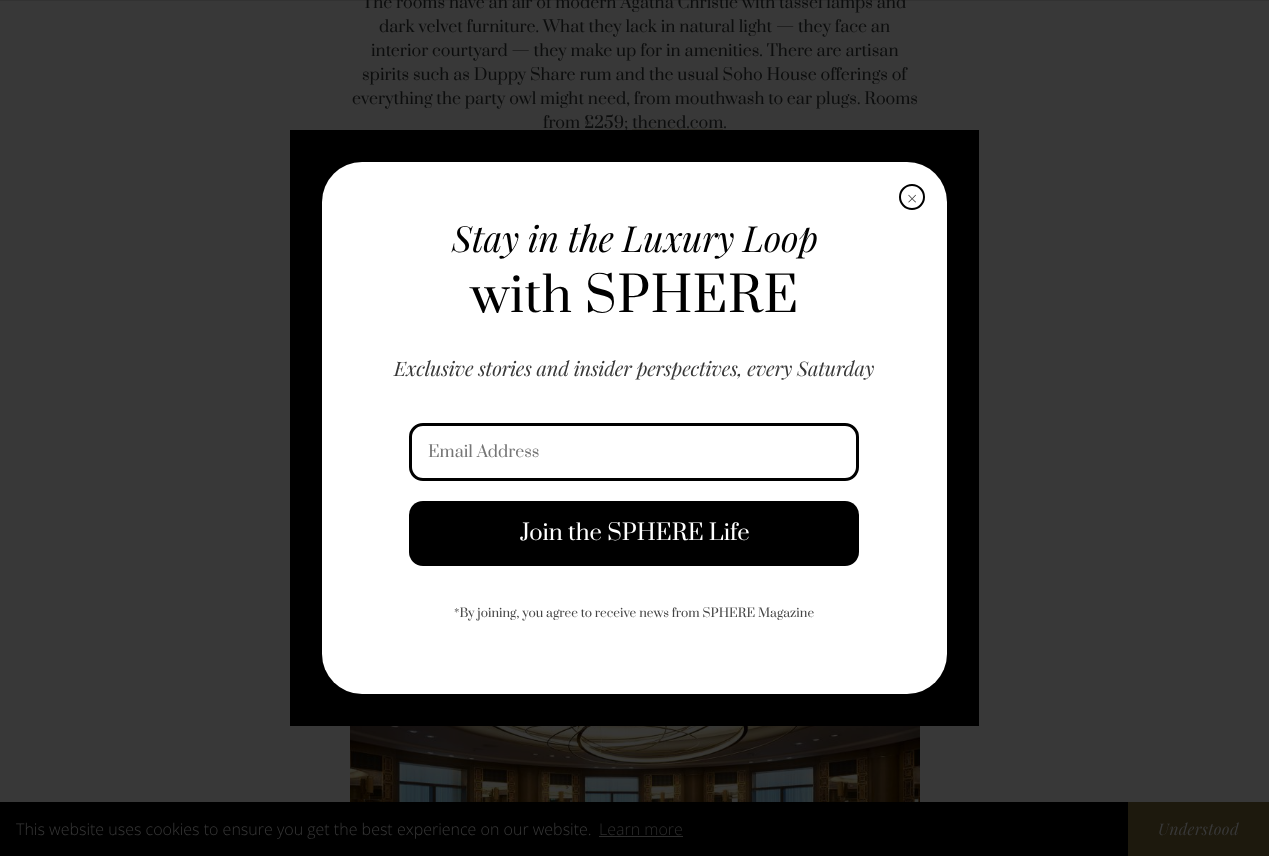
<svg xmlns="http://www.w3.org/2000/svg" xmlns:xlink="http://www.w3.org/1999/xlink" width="1269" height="856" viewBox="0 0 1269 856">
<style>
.cls-1{font:16px Prata;fill:#0c0d0d}
.cls-2{font:300 18px Open Sans;fill:#383838}
.cls-3{font:italic 36px Playfair Display;letter-spacing:-0.3px;fill:#000000}
.cls-4{font:48px Prata;letter-spacing:0.6px;fill:#000000}
.cls-5{font:italic 20px Playfair Display;letter-spacing:-0.2px;fill:#383838}
.cls-6{font:16px Prata;fill:#757575}
.cls-7{font:22px Prata;fill:#ffffff}
.cls-8{font:12px Prata;fill:#444444}
.cls-9{font:300 16px Open Sans;fill:#383838}
.cls-10{font:300 16px Open Sans;fill:#2d2d2d}
.cls-11{font:italic 16px Playfair Display;letter-spacing:0.25px;fill:#383838}
</style>
<rect width="100%" height="100%" fill="#383838"/>
<rect fill="#030303" fill-opacity="0.1" x="0" y="0" width="1269" height="1"/>
<image xlink:href="image0.png" x="350" y="726" width="570" height="76"/>
<rect fill="#000000" x="0" y="802" width="1128" height="54"/>
<rect fill="#2d2d2d" x="599" y="836" width="84" height="1"/>
<rect fill="#1d190d" x="1128" y="802" width="141" height="54"/>
<text class="cls-1" x="362" y="8">The rooms have an air of modern Agatha Christie with tassel lamps and</text>
<text class="cls-1" x="379" y="32">dark velvet furniture. What they lack in natural light — they face an</text>
<text class="cls-1" x="371" y="56">interior courtyard — they make up for in amenities. There are artisan</text>
<text class="cls-1" x="362" y="80">spirits such as Duppy Share rum and the usual Soho House offerings of</text>
<text class="cls-1" x="352" y="104">everything the party owl might need, from mouthwash to ear plugs. Rooms</text>
<text class="cls-1" x="543" y="128">from £259; thened.com.</text>
<rect fill="#302e27" x="632" y="129" width="91" height="1"/>
<rect fill="#000000" x="290" y="130" width="689" height="596"/>
<rect fill="#ffffff" x="322" y="162" width="625" height="532" rx="40"/>
<circle fill="none" stroke="#000000" stroke-width="2" cx="912" cy="197" r="12"/>
<text class="cls-2" x="907" y="205">×</text>
<text class="cls-3" x="452" y="252">Stay in the Luxury Loop</text>
<text class="cls-4" x="470" y="312">with SPHERE</text>
<text class="cls-5" x="394" y="376">Exclusive stories and insider perspectives, every Saturday</text>
<rect fill="none" stroke="#000000" stroke-width="3" x="410.5" y="424.5" width="447" height="55" rx="12.5"/>
<text class="cls-6" x="428" y="457">Email Address</text>
<rect fill="#000000" x="409" y="501" width="450" height="65" rx="14"/>
<text class="cls-7" x="520" y="540">Join the SPHERE Life</text>
<text class="cls-8" x="454" y="617">*By joining, you agree to receive news from SPHERE Magazine</text>
<text class="cls-9" x="16" y="835">This website uses cookies to ensure you get the best experience on our website.</text>
<text class="cls-10" x="599" y="835">Learn more</text>
<text class="cls-11" x="1158" y="835">Understood</text>
</svg>
